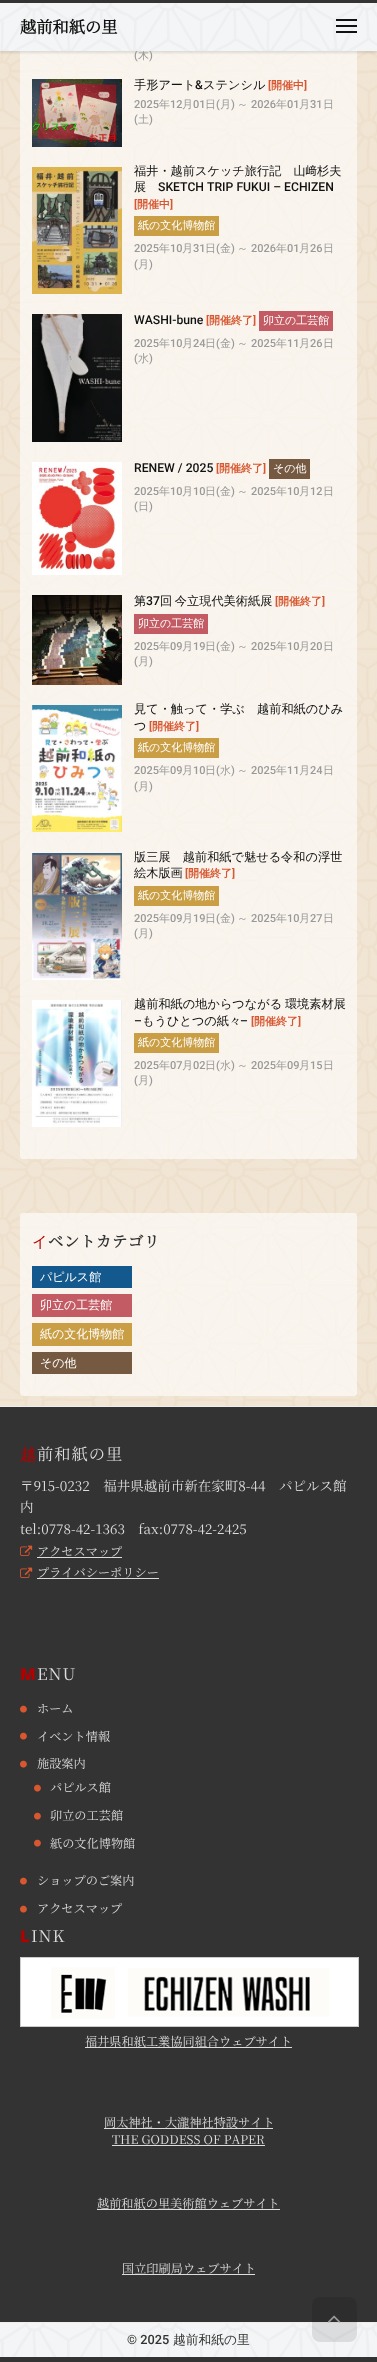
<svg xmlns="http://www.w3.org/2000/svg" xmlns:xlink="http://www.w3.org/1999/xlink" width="377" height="2362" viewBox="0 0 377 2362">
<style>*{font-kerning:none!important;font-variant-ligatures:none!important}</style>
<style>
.cls-1{font:500 11px Roboto;fill:#999999}
.cls-2{font:500 11px WenQuanYi Zen Hei;fill:#999999}
.cls-3{font:bold 16.25px Noto Serif JP;fill:#111111}
.cls-4{font:500 12.2px WenQuanYi Zen Hei;fill:#111111}
.cls-5{font:500 12.2px Roboto;fill:#111111}
.cls-6{font:bold 11px Roboto;fill:#d75730}
.cls-7{font:bold 11px WenQuanYi Zen Hei;fill:#d75730}
.cls-8{font:12.2px IPAPGothic;fill:#111111}
.cls-9{font:500 11px WenQuanYi Zen Hei;fill:#ffffff}
.cls-10{font:100 15.25px Noto Sans;letter-spacing:0.75px;fill:#b40000}
.cls-11{font:bold 15.25px Noto Serif JP;letter-spacing:0.75px;fill:#333333}
.cls-12{font:500 12px WenQuanYi Zen Hei;fill:#ffffff}
.cls-13{font:16.25px Noto Sans;letter-spacing:1px;fill:#b40000}
.cls-14{font:200 16.25px Noto Serif JP;letter-spacing:1px;fill:#dddddd}
.cls-15{font:200 13.5px Noto Serif JP;fill:#dddddd}
.cls-16{font:200 12.2px Noto Serif JP;fill:#dddddd}
.cls-17{font:900 16.25px Noto Sans;letter-spacing:1px;fill:#b40000}
.cls-18{font:500 12.75px Roboto;fill:#333333}
.cls-19{font:500 12.75px WenQuanYi Zen Hei;fill:#333333}
</style>
<rect width="100%" height="100%" fill="#ffffff"/>
<image xlink:href="image0.png" x="0" y="51" width="377" height="1355"/>
<rect fill="#ffffff" fill-opacity="0.6" x="20" y="-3" width="337" height="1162" rx="3"/>
<rect fill="#000000" fill-opacity="0.1" filter="blur(1px)" x="0" y="2" width="377" height="51"/>
<rect fill="#333333" x="0" y="0" width="377" height="3"/>
<image xlink:href="image2.png" x="32" y="79" width="90" height="68"/>
<image xlink:href="image3.png" x="32" y="167" width="90" height="127"/>
<rect fill="#c99e44" x="134" y="216" width="85" height="20"/>
<image xlink:href="image4.png" x="32" y="314" width="90" height="128"/>
<rect fill="#c25b63" x="259" y="311" width="74" height="20"/>
<image xlink:href="image5.png" x="32" y="462" width="90" height="113"/>
<rect fill="#755940" x="269" y="459" width="41" height="20"/>
<image xlink:href="image6.png" x="32" y="595" width="90" height="90"/>
<rect fill="#c25b63" x="134" y="614" width="74" height="20"/>
<image xlink:href="image7.png" x="32" y="705" width="90" height="127"/>
<rect fill="#c99e44" x="134" y="738" width="85" height="20"/>
<image xlink:href="image8.png" x="32" y="853" width="90" height="127"/>
<rect fill="#c99e44" x="134" y="886" width="85" height="20"/>
<image xlink:href="image9.png" x="32" y="1000" width="90" height="127"/>
<rect fill="#c99e44" x="134" y="1033" width="85" height="20"/>
<rect fill="#ffffff" fill-opacity="0.6" x="20" y="1213" width="337" height="183" rx="3"/>
<rect fill="#14598d" x="32" y="1266" width="100" height="22"/>
<rect fill="#c25b63" x="32" y="1294" width="100" height="23"/>
<rect fill="#c99e44" x="32" y="1323" width="100" height="23"/>
<rect fill="#755940" x="32" y="1352" width="100" height="22"/>
<rect fill="#333333" x="0" y="1407" width="377" height="915"/>
<rect fill="#eeeeee" x="0" y="1406" width="377" height="1"/>
<image xlink:href="image10.png" x="20" y="1545" width="13" height="11"/>
<rect fill="#dddddd" x="37" y="1557" width="85" height="1"/>
<image xlink:href="image10.png" x="20" y="1567" width="13" height="11"/>
<rect fill="#dddddd" x="37" y="1578" width="122" height="1"/>
<image xlink:href="image11.png" x="20" y="1705" width="7" height="8"/>
<image xlink:href="image11.png" x="20" y="1732" width="7" height="8"/>
<image xlink:href="image11.png" x="20" y="1760" width="7" height="8"/>
<image xlink:href="image11.png" x="34" y="1784" width="7" height="8"/>
<image xlink:href="image11.png" x="34" y="1812" width="7" height="8"/>
<image xlink:href="image11.png" x="34" y="1839" width="7" height="8"/>
<image xlink:href="image11.png" x="20" y="1877" width="7" height="8"/>
<image xlink:href="image11.png" x="20" y="1905" width="7" height="8"/>
<rect fill="none" stroke="#cccccc" x="20.5" y="1957.5" width="338" height="69"/>
<image xlink:href="image12.png" x="21" y="1958" width="337" height="68"/>
<rect fill="#dddddd" x="85" y="2047" width="207" height="1"/>
<rect fill="#dddddd" x="104" y="2128" width="169" height="1"/>
<rect fill="#dddddd" x="112" y="2145" width="153" height="1"/>
<rect fill="#dddddd" x="97" y="2209" width="183" height="1"/>
<rect fill="#dddddd" x="122" y="2274" width="133" height="1"/>
<image xlink:href="image13.png" x="0" y="2323" width="377" height="34"/>
<rect fill="#eeeeee" x="0" y="2322" width="377" height="1"/>
<rect fill="#333333" x="0" y="2357" width="377" height="5"/>
<rect fill="#000000" fill-opacity="0.1" x="312" y="2297" width="45" height="45" rx="8"/>
<image xlink:href="image14.png" x="328" y="2315" width="13" height="8"/>
<text class="cls-1" x="134" y="59">(</text>
<text class="cls-2" x="138" y="59">木</text>
<text class="cls-1" x="149" y="59">)</text>
<image xlink:href="image1.png" x="0" y="3" width="377" height="48"/>
<rect fill="#111111" x="336" y="31" width="21" height="2"/>
<rect fill="#111111" x="336" y="19" width="21" height="2"/>
<rect fill="#111111" x="336" y="25" width="21" height="2"/>
<text class="cls-3" x="20" y="33">越前和紙の里</text>
<text class="cls-4" x="134" y="89">手形アート</text>
<text class="cls-5" x="195" y="89">&amp;</text>
<text class="cls-4" x="203" y="89">ステンシル</text>
<text class="cls-6" x="268" y="89">[</text>
<text class="cls-7" x="271" y="89">開催中</text>
<text class="cls-6" x="304" y="89">]</text>
<text class="cls-1" x="134" y="108">2025</text>
<text class="cls-2" x="159" y="108">年</text>
<text class="cls-1" x="170" y="108">12</text>
<text class="cls-2" x="182" y="108">月</text>
<text class="cls-1" x="193" y="108">01</text>
<text class="cls-2" x="205" y="108">日</text>
<text class="cls-1" x="216" y="108">(</text>
<text class="cls-2" x="220" y="108">月</text>
<text class="cls-1" x="231" y="108">)</text>
<text class="cls-2" x="237" y="108">～</text>
<text class="cls-1" x="251" y="108">2026</text>
<text class="cls-2" x="276" y="108">年</text>
<text class="cls-1" x="287" y="108">01</text>
<text class="cls-2" x="299" y="108">月</text>
<text class="cls-1" x="310" y="108">31</text>
<text class="cls-2" x="323" y="108">日</text>
<text class="cls-1" x="134" y="123">(</text>
<text class="cls-2" x="138" y="123">土</text>
<text class="cls-1" x="149" y="123">)</text>
<text class="cls-4" x="134" y="175">福井・越前スケッチ旅行記　山</text>
<text class="cls-8" x="305" y="175">﨑</text>
<text class="cls-4" x="317" y="175">杉夫</text>
<text class="cls-4" x="134" y="191">展</text>
<text class="cls-5" x="158" y="191">SKETCH TRIP FUKUI – ECHIZEN</text>
<text class="cls-6" x="134" y="208">[</text>
<text class="cls-7" x="137" y="208">開催中</text>
<text class="cls-6" x="170" y="208">]</text>
<text class="cls-9" x="138" y="229">紙の文化博物館</text>
<text class="cls-1" x="134" y="252">2025</text>
<text class="cls-2" x="159" y="252">年</text>
<text class="cls-1" x="170" y="252">10</text>
<text class="cls-2" x="182" y="252">月</text>
<text class="cls-1" x="193" y="252">31</text>
<text class="cls-2" x="205" y="252">日</text>
<text class="cls-1" x="216" y="252">(</text>
<text class="cls-2" x="220" y="252">金</text>
<text class="cls-1" x="231" y="252">)</text>
<text class="cls-2" x="237" y="252">～</text>
<text class="cls-1" x="251" y="252">2026</text>
<text class="cls-2" x="276" y="252">年</text>
<text class="cls-1" x="287" y="252">01</text>
<text class="cls-2" x="299" y="252">月</text>
<text class="cls-1" x="310" y="252">26</text>
<text class="cls-2" x="323" y="252">日</text>
<text class="cls-1" x="134" y="268">(</text>
<text class="cls-2" x="138" y="268">月</text>
<text class="cls-1" x="149" y="268">)</text>
<text class="cls-5" x="134" y="324">WASHI-bune</text>
<text class="cls-6" x="206" y="324">[</text>
<text class="cls-7" x="209" y="324">開催終了</text>
<text class="cls-6" x="253" y="324">]</text>
<text class="cls-9" x="263" y="324">卯立の工芸館</text>
<text class="cls-1" x="134" y="347">2025</text>
<text class="cls-2" x="159" y="347">年</text>
<text class="cls-1" x="170" y="347">10</text>
<text class="cls-2" x="182" y="347">月</text>
<text class="cls-1" x="193" y="347">24</text>
<text class="cls-2" x="205" y="347">日</text>
<text class="cls-1" x="216" y="347">(</text>
<text class="cls-2" x="220" y="347">金</text>
<text class="cls-1" x="231" y="347">)</text>
<text class="cls-2" x="237" y="347">～</text>
<text class="cls-1" x="251" y="347">2025</text>
<text class="cls-2" x="276" y="347">年</text>
<text class="cls-1" x="287" y="347">11</text>
<text class="cls-2" x="299" y="347">月</text>
<text class="cls-1" x="310" y="347">26</text>
<text class="cls-2" x="323" y="347">日</text>
<text class="cls-1" x="134" y="362">(</text>
<text class="cls-2" x="138" y="362">水</text>
<text class="cls-1" x="149" y="362">)</text>
<text class="cls-5" x="134" y="472">RENEW / 2025</text>
<text class="cls-6" x="216" y="472">[</text>
<text class="cls-7" x="219" y="472">開催終了</text>
<text class="cls-6" x="263" y="472">]</text>
<text class="cls-9" x="273" y="472">その他</text>
<text class="cls-1" x="134" y="495">2025</text>
<text class="cls-2" x="159" y="495">年</text>
<text class="cls-1" x="170" y="495">10</text>
<text class="cls-2" x="182" y="495">月</text>
<text class="cls-1" x="193" y="495">10</text>
<text class="cls-2" x="205" y="495">日</text>
<text class="cls-1" x="216" y="495">(</text>
<text class="cls-2" x="220" y="495">金</text>
<text class="cls-1" x="231" y="495">)</text>
<text class="cls-2" x="237" y="495">～</text>
<text class="cls-1" x="251" y="495">2025</text>
<text class="cls-2" x="276" y="495">年</text>
<text class="cls-1" x="287" y="495">10</text>
<text class="cls-2" x="299" y="495">月</text>
<text class="cls-1" x="310" y="495">12</text>
<text class="cls-2" x="323" y="495">日</text>
<text class="cls-1" x="134" y="510">(</text>
<text class="cls-2" x="138" y="510">日</text>
<text class="cls-1" x="149" y="510">)</text>
<text class="cls-4" x="134" y="605">第</text>
<text class="cls-5" x="146" y="605">37</text>
<text class="cls-4" x="160" y="605" word-spacing="-1">回 今立現代美術紙展</text>
<text class="cls-6" x="275" y="605">[</text>
<text class="cls-7" x="278" y="605">開催終了</text>
<text class="cls-6" x="322" y="605">]</text>
<text class="cls-9" x="138" y="627">卯立の工芸館</text>
<text class="cls-1" x="134" y="650">2025</text>
<text class="cls-2" x="159" y="650">年</text>
<text class="cls-1" x="170" y="650">09</text>
<text class="cls-2" x="182" y="650">月</text>
<text class="cls-1" x="193" y="650">19</text>
<text class="cls-2" x="205" y="650">日</text>
<text class="cls-1" x="216" y="650">(</text>
<text class="cls-2" x="220" y="650">金</text>
<text class="cls-1" x="231" y="650">)</text>
<text class="cls-2" x="237" y="650">～</text>
<text class="cls-1" x="251" y="650">2025</text>
<text class="cls-2" x="276" y="650">年</text>
<text class="cls-1" x="287" y="650">10</text>
<text class="cls-2" x="299" y="650">月</text>
<text class="cls-1" x="310" y="650">20</text>
<text class="cls-2" x="323" y="650">日</text>
<text class="cls-1" x="134" y="665">(</text>
<text class="cls-2" x="138" y="665">月</text>
<text class="cls-1" x="149" y="665">)</text>
<text class="cls-4"><tspan x="134" y="713">見て・触って・学ぶ　越前和紙のひみ</tspan><tspan x="134" y="730">つ</tspan></text>
<text class="cls-6" x="149" y="730">[</text>
<text class="cls-7" x="152" y="730">開催終了</text>
<text class="cls-6" x="196" y="730">]</text>
<text class="cls-9" x="138" y="751">紙の文化博物館</text>
<text class="cls-1" x="134" y="774">2025</text>
<text class="cls-2" x="159" y="774">年</text>
<text class="cls-1" x="170" y="774">09</text>
<text class="cls-2" x="182" y="774">月</text>
<text class="cls-1" x="193" y="774">10</text>
<text class="cls-2" x="205" y="774">日</text>
<text class="cls-1" x="216" y="774">(</text>
<text class="cls-2" x="220" y="774">水</text>
<text class="cls-1" x="231" y="774">)</text>
<text class="cls-2" x="237" y="774">～</text>
<text class="cls-1" x="251" y="774">2025</text>
<text class="cls-2" x="276" y="774">年</text>
<text class="cls-1" x="287" y="774">11</text>
<text class="cls-2" x="299" y="774">月</text>
<text class="cls-1" x="310" y="774">24</text>
<text class="cls-2" x="323" y="774">日</text>
<text class="cls-1" x="134" y="790">(</text>
<text class="cls-2" x="138" y="790">月</text>
<text class="cls-1" x="149" y="790">)</text>
<text class="cls-4"><tspan x="134" y="861">版三展　越前和紙で魅せる令和の浮世</tspan><tspan x="134" y="877">絵木版画</tspan></text>
<text class="cls-6" x="185" y="877">[</text>
<text class="cls-7" x="188" y="877">開催終了</text>
<text class="cls-6" x="232" y="877">]</text>
<text class="cls-9" x="138" y="899">紙の文化博物館</text>
<text class="cls-1" x="134" y="922">2025</text>
<text class="cls-2" x="159" y="922">年</text>
<text class="cls-1" x="170" y="922">09</text>
<text class="cls-2" x="182" y="922">月</text>
<text class="cls-1" x="193" y="922">19</text>
<text class="cls-2" x="205" y="922">日</text>
<text class="cls-1" x="216" y="922">(</text>
<text class="cls-2" x="220" y="922">金</text>
<text class="cls-1" x="231" y="922">)</text>
<text class="cls-2" x="237" y="922">～</text>
<text class="cls-1" x="251" y="922">2025</text>
<text class="cls-2" x="276" y="922">年</text>
<text class="cls-1" x="287" y="922">10</text>
<text class="cls-2" x="299" y="922">月</text>
<text class="cls-1" x="310" y="922">27</text>
<text class="cls-2" x="323" y="922">日</text>
<text class="cls-1" x="134" y="937">(</text>
<text class="cls-2" x="138" y="937">月</text>
<text class="cls-1" x="149" y="937">)</text>
<text class="cls-4" x="134" y="1008" word-spacing="-1">越前和紙の地からつながる 環境素材展</text>
<text class="cls-5" x="134" y="1025">–</text>
<text class="cls-4" x="142" y="1025">もうひとつの紙々</text>
<text class="cls-5" x="240" y="1025">–</text>
<text class="cls-6" x="251" y="1025">[</text>
<text class="cls-7" x="254" y="1025">開催終了</text>
<text class="cls-6" x="298" y="1025">]</text>
<text class="cls-9" x="138" y="1046">紙の文化博物館</text>
<text class="cls-1" x="134" y="1069">2025</text>
<text class="cls-2" x="159" y="1069">年</text>
<text class="cls-1" x="170" y="1069">07</text>
<text class="cls-2" x="182" y="1069">月</text>
<text class="cls-1" x="193" y="1069">02</text>
<text class="cls-2" x="205" y="1069">日</text>
<text class="cls-1" x="216" y="1069">(</text>
<text class="cls-2" x="220" y="1069">水</text>
<text class="cls-1" x="231" y="1069">)</text>
<text class="cls-2" x="237" y="1069">～</text>
<text class="cls-1" x="251" y="1069">2025</text>
<text class="cls-2" x="276" y="1069">年</text>
<text class="cls-1" x="287" y="1069">09</text>
<text class="cls-2" x="299" y="1069">月</text>
<text class="cls-1" x="310" y="1069">15</text>
<text class="cls-2" x="323" y="1069">日</text>
<text class="cls-1" x="134" y="1084">(</text>
<text class="cls-2" x="138" y="1084">月</text>
<text class="cls-1" x="149" y="1084">)</text>
<text class="cls-10" x="32" y="1247">イ</text>
<text class="cls-11" x="48" y="1247">ベントカテゴリ</text>
<text class="cls-12" x="40" y="1281">パピルス館</text>
<text class="cls-12" x="40" y="1309">卯立の工芸館</text>
<text class="cls-12" x="40" y="1338">紙の文化博物館</text>
<text class="cls-12" x="40" y="1367">その他</text>
<text class="cls-13" x="20" y="1460">越</text>
<text class="cls-14" x="37" y="1460">前和紙の里</text>
<text class="cls-15"><tspan x="20" y="1491">〒915-0232　福井県越前市新在家町8-44　パピルス館</tspan><tspan x="20" y="1512">内</tspan><tspan x="20" y="1534">tel:0778-42-1363　fax:0778-42-2425</tspan></text>
<text class="cls-16"><tspan x="37" y="1556">アクセスマップ</tspan><tspan x="37" y="1577">プライバシーポリシー</tspan></text>
<text class="cls-17" x="20" y="1680">M</text>
<text class="cls-14" x="37" y="1680">ENU</text>
<text class="cls-16" x="37" y="1713">ホーム</text>
<text class="cls-16" x="37" y="1741">イベント情報</text>
<text class="cls-16" x="37" y="1768">施設案内</text>
<text class="cls-16" x="50" y="1792">パピルス館</text>
<text class="cls-16" x="50" y="1820">卯立の工芸館</text>
<text class="cls-16" x="50" y="1848">紙の文化博物館</text>
<text class="cls-16" x="37" y="1885">ショップのご案内</text>
<text class="cls-16" x="37" y="1913">アクセスマップ</text>
<text class="cls-17" x="20" y="1942">L</text>
<text class="cls-14" x="31" y="1942">INK</text>
<text class="cls-16" x="85" y="2046">福井県和紙工業協同組合ウェブサイト</text>
<text class="cls-16" x="104" y="2127">岡太神社・大瀧神社特設サイト</text>
<text class="cls-16" x="112" y="2144">THE GODDESS OF PAPER</text>
<text class="cls-16" x="97" y="2208">越前和紙の里美術館ウェブサイト</text>
<text class="cls-16" x="122" y="2273">国立印刷局ウェブサイト</text>
<text class="cls-18" x="127" y="2344">© 2025</text>
<text class="cls-19" x="173" y="2344">越前和紙の里</text>
</svg>
